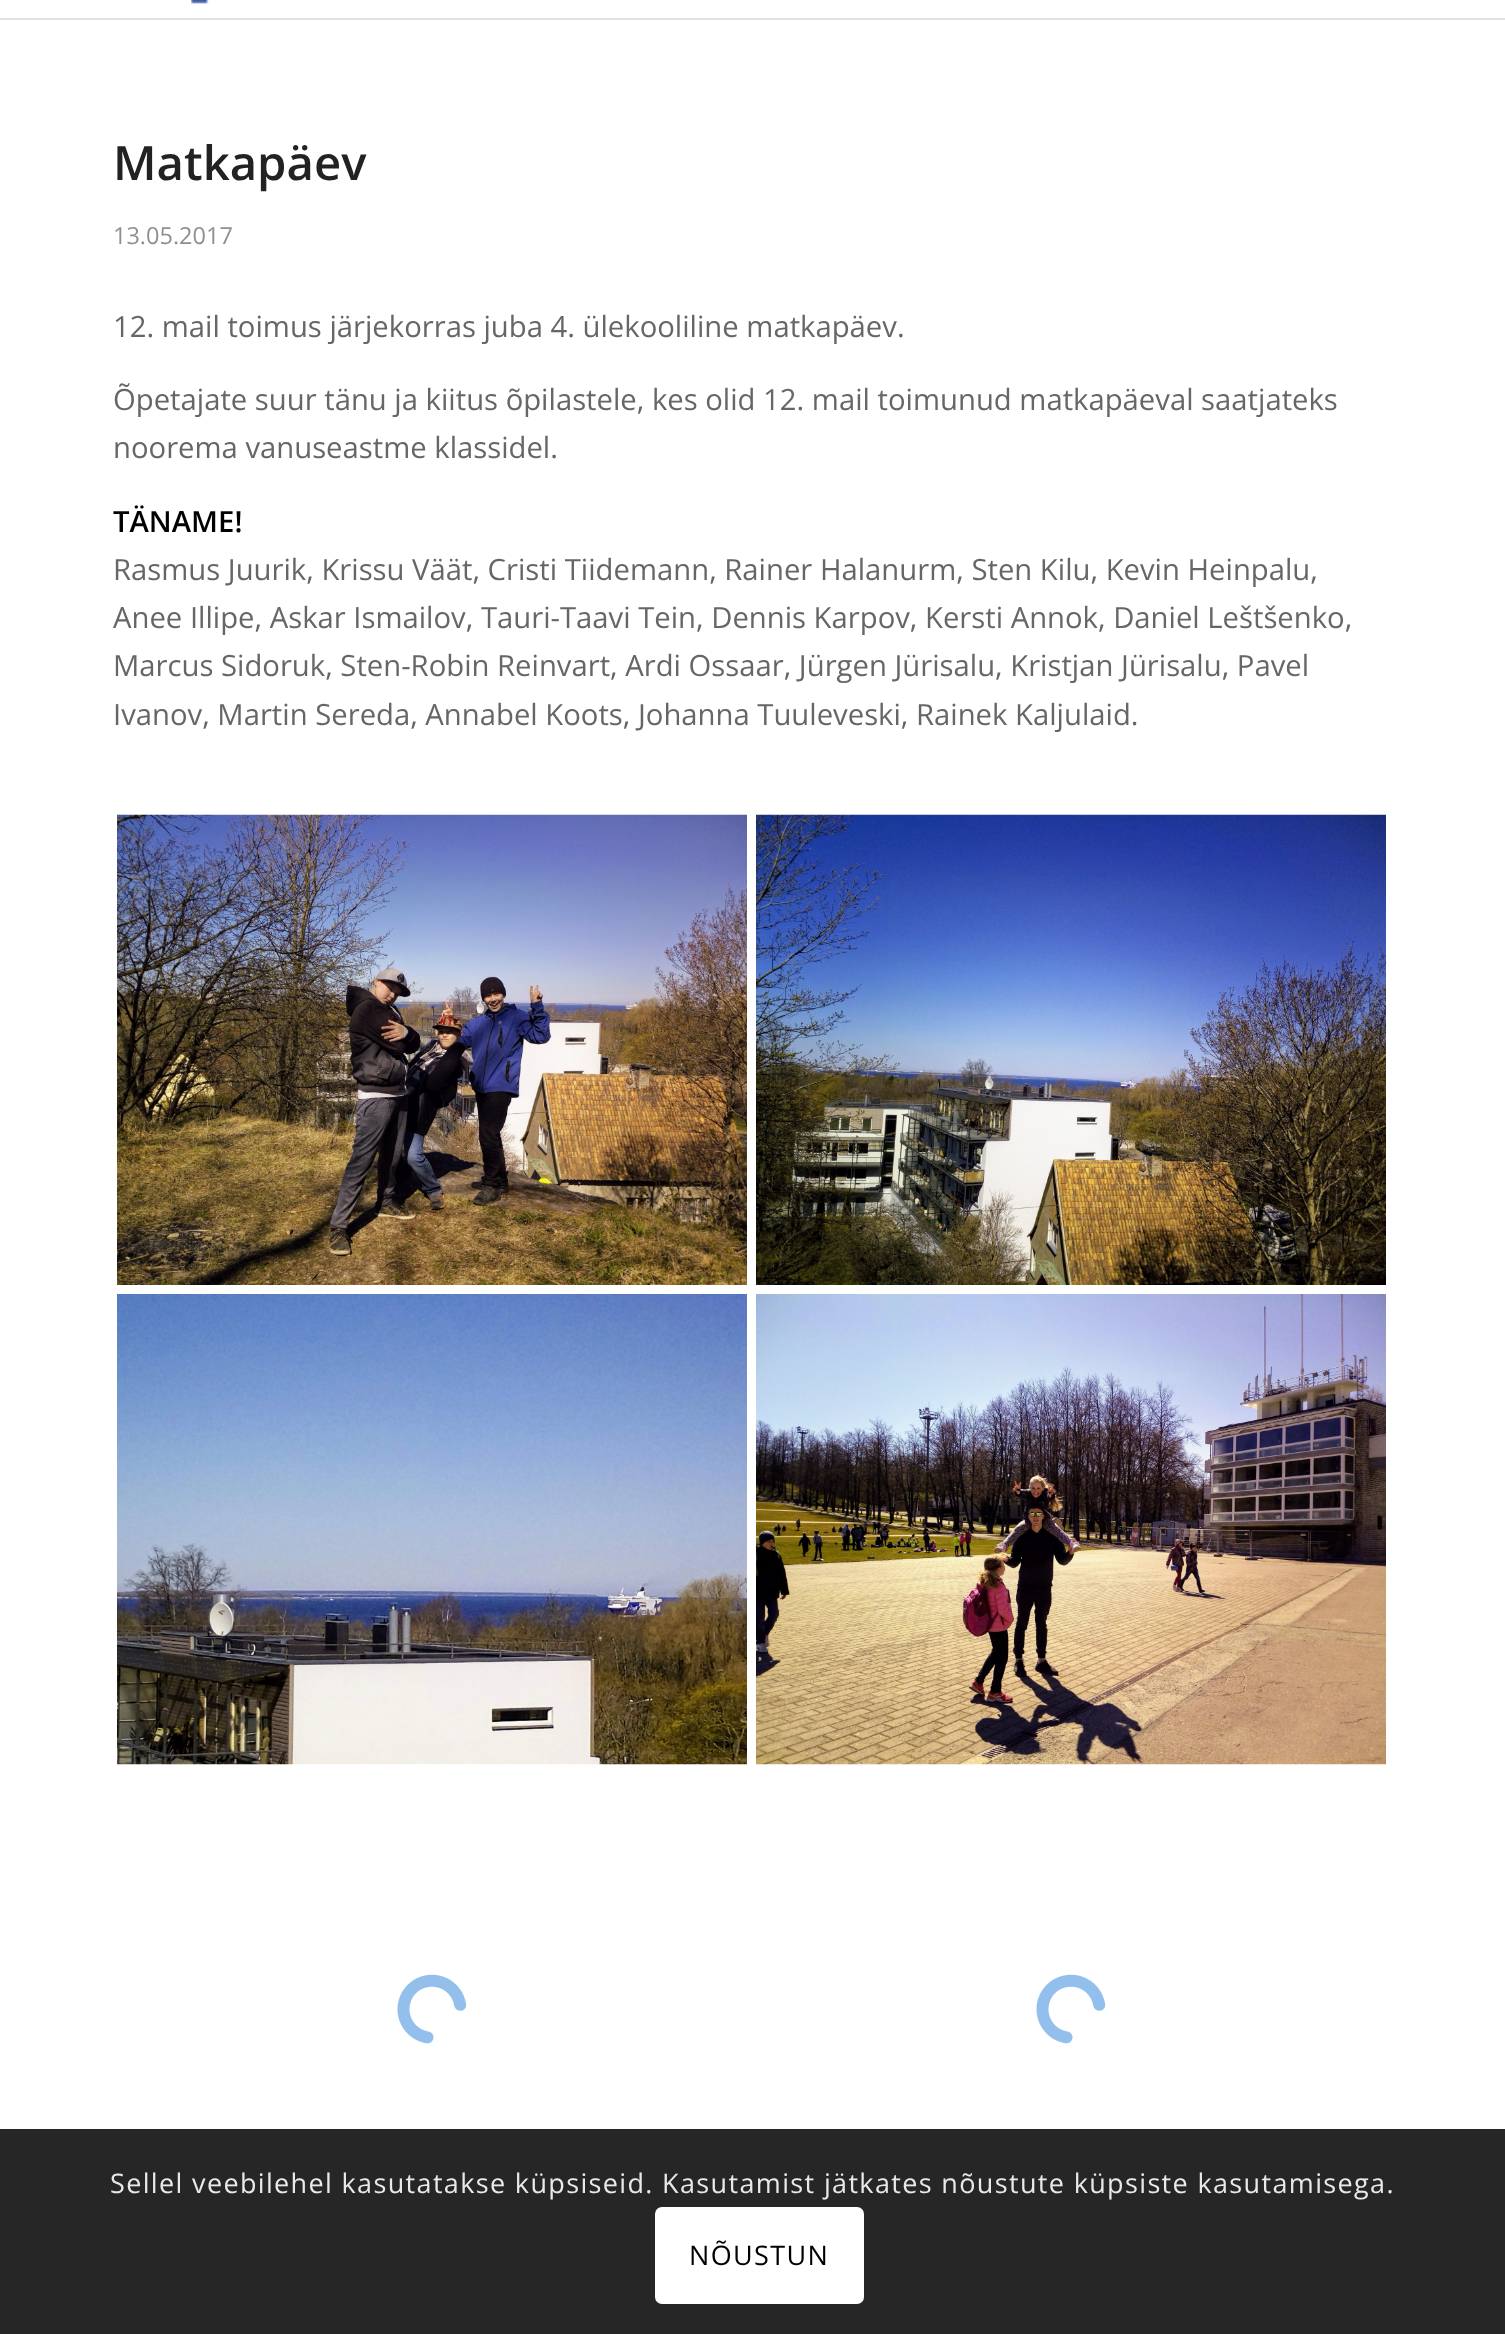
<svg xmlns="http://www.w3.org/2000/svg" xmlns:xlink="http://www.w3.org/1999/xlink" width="1505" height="2334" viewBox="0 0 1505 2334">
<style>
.cls-1{font:600 47.25px Open Sans;fill:#222222}
.cls-2{font:23.5px Open Sans;fill:#8f8f8f}
.cls-3{font:29.25px Open Sans;fill:#666666}
.cls-4{font:600 29.25px Open Sans;fill:#000000}
.cls-5{font:27px Open Sans;letter-spacing:1.35px;fill:#e9e9e9}
.cls-6{font:27px Open Sans;letter-spacing:1.35px;fill:#000000}
</style>
<rect width="100%" height="100%" fill="#ffffff"/>
<rect fill="#e1e1e1" x="0" y="18" width="1505" height="2"/>
<image xlink:href="image0.png" x="191" y="0" width="18" height="4"/>
<image xlink:href="image1.png" x="117" y="814" width="630" height="471"/>
<image xlink:href="image2.png" x="756" y="814" width="630" height="471"/>
<image xlink:href="image3.png" x="117" y="1294" width="630" height="471"/>
<image xlink:href="image4.png" x="756" y="1294" width="630" height="471"/>
<image xlink:href="image5.png" x="397" y="1974" width="70" height="70"/>
<image xlink:href="image5.png" x="1036" y="1974" width="70" height="70"/>
<rect fill="#262626" x="0" y="2129" width="1505" height="205"/>
<rect fill="#ffffff" x="655" y="2207" width="209" height="97" rx="7"/>
<text class="cls-1" x="113" y="180">Matkapäev</text>
<text class="cls-2" x="113" y="244">13.05.2017</text>
<text class="cls-3" x="113" y="337">12. mail toimus järjekorras juba 4. ülekooliline matkapäev.</text>
<text class="cls-3"><tspan x="113" y="410">Õpetajate suur tänu ja kiitus õpilastele, kes olid 12. mail toimunud matkapäeval saatjateks</tspan><tspan x="113" y="458">noorema vanuseastme klassidel.</tspan></text>
<text class="cls-4" x="113" y="532">TÄNAME!</text>
<text class="cls-3"><tspan x="113" y="580">Rasmus Juurik, Krissu Väät, Cristi Tiidemann, Rainer Halanurm, Sten Kilu, Kevin Heinpalu,</tspan><tspan x="113" y="628">Anee Illipe, Askar Ismailov, Tauri-Taavi Tein, Dennis Karpov, Kersti Annok, Daniel Leštšenko,</tspan><tspan x="113" y="676">Marcus Sidoruk, Sten-Robin Reinvart, Ardi Ossaar, Jürgen Jürisalu, Kristjan Jürisalu, Pavel</tspan><tspan x="113" y="725">Ivanov, Martin Sereda, Annabel Koots, Johanna Tuuleveski, Rainek Kaljulaid.</tspan></text>
<text class="cls-5" x="110" y="2193">Sellel veebilehel kasutatakse küpsiseid. Kasutamist jätkates nõustute küpsiste kasutamisega.</text>
<text class="cls-6" x="689" y="2265">NÕUSTUN</text>
</svg>
